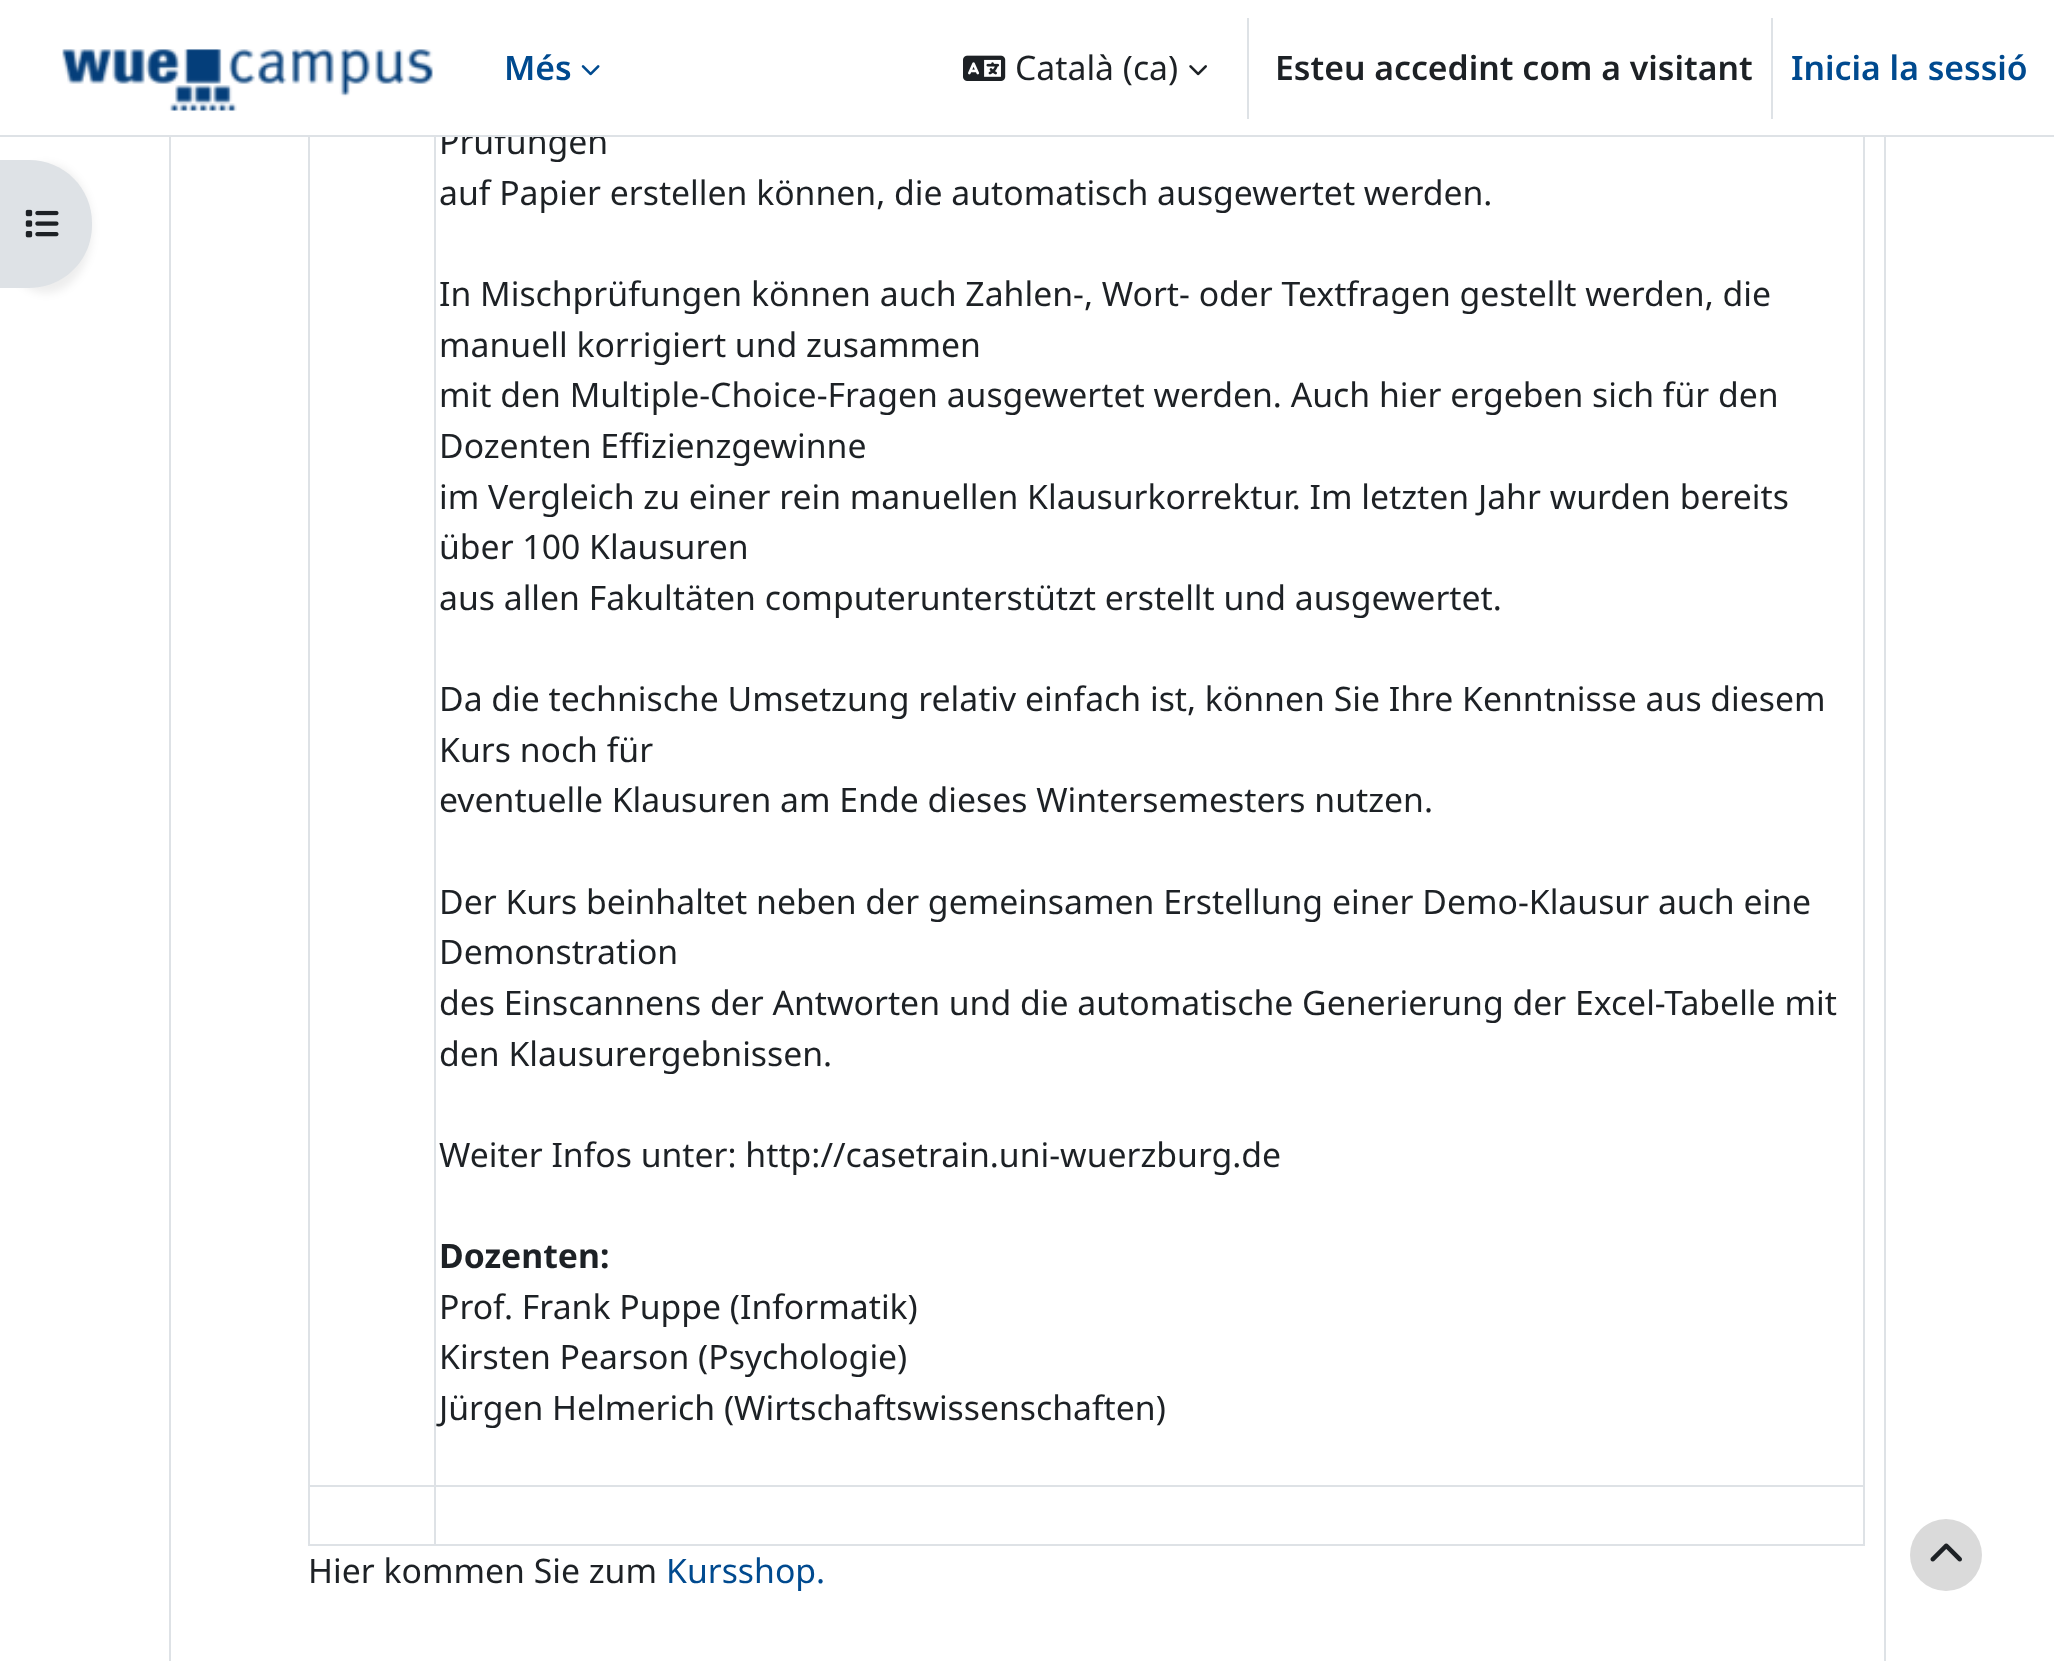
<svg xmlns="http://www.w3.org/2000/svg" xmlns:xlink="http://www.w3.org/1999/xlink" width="2054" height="1661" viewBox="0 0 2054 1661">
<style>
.cls-1{font:33.75px Noto Sans;fill:#1d2125}
.cls-2{font:600 33.75px Noto Sans;fill:#004a8f}
.cls-3{font:600 33.75px Noto Sans;fill:#1d2125}
.cls-4{font:bold 33.75px Noto Sans;fill:#1d2125}
.cls-5{font:33.75px Noto Sans;fill:#004a8f}
</style>
<rect width="100%" height="100%" fill="#ffffff"/>
<rect fill="#000000" fill-opacity="0.07" filter="blur(4.5px)" x="0" y="164" width="92" height="129" rx="63"/>
<path fill="#dee2e6" d="M0 160H29C64 160 92 188 92 223V225C92 260 64 288 29 288H0Z"/>
<image xlink:href="image4.png" x="25" y="209" width="34" height="29"/>
<rect fill="none" stroke="#dee2e6" stroke-width="2" x="170" y="-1" width="1715" height="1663"/>
<rect fill="#dee2e6" x="1863" y="137" width="2" height="1409"/>
<rect fill="#dee2e6" x="308" y="1544" width="1557" height="2"/>
<rect fill="#dee2e6" x="308" y="137" width="2" height="1409"/>
<rect fill="#dee2e6" x="308" y="1485" width="1557" height="2"/>
<rect fill="#dee2e6" x="434" y="137" width="2" height="1409"/>
<circle fill="#dadada" cx="1946" cy="1555" r="36"/>
<image xlink:href="image5.png" x="1930" y="1543" width="32" height="19"/>
<text class="cls-1" x="439" y="154">Prüfungen</text>
<rect fill="#ffffff" x="169" y="0" width="1717" height="135"/>
<image xlink:href="image3.png" x="1189" y="65" width="18" height="11"/>
<text class="cls-1" x="1015" y="80">Català (ca)</text>
<image xlink:href="image2.png" x="963" y="55" width="43" height="26"/>
<image xlink:href="image1.png" x="581" y="65" width="19" height="11"/>
<text class="cls-2" x="504" y="80">Més</text>
<image xlink:href="image0.png" x="62" y="49" width="371" height="62"/>
<text class="cls-2" x="1791" y="80">Inicia la sessió</text>
<rect fill="#dee2e6" x="1771" y="18" width="2" height="101"/>
<text class="cls-3" x="1275" y="80">Esteu accedint com a visitant</text>
<rect fill="#dee2e6" x="1247" y="18" width="2" height="101"/>
<rect fill="#dee2e6" x="0" y="135" width="2054" height="2"/>
<text class="cls-1" x="439" y="205">auf Papier erstellen können, die automatisch ausgewertet werden.</text>
<text class="cls-1"><tspan x="439" y="306">In Mischprüfungen können auch Zahlen-, Wort- oder Textfragen gestellt werden, die</tspan><tspan x="439" y="357">manuell korrigiert und zusammen</tspan><tspan x="439" y="407">mit den Multiple-Choice-Fragen ausgewertet werden. Auch hier ergeben sich für den</tspan><tspan x="439" y="458">Dozenten Effizienzgewinne</tspan><tspan x="439" y="509">im Vergleich zu einer rein manuellen Klausurkorrektur. Im letzten Jahr wurden bereits</tspan><tspan x="439" y="559">über 100 Klausuren</tspan><tspan x="439" y="610">aus allen Fakultäten computerunterstützt erstellt und ausgewertet.</tspan></text>
<text class="cls-1"><tspan x="439" y="711">Da die technische Umsetzung relativ einfach ist, können Sie Ihre Kenntnisse aus diesem</tspan><tspan x="439" y="762">Kurs noch für</tspan><tspan x="439" y="812">eventuelle Klausuren am Ende dieses Wintersemesters nutzen.</tspan></text>
<text class="cls-1"><tspan x="439" y="914">Der Kurs beinhaltet neben der gemeinsamen Erstellung einer Demo-Klausur auch eine</tspan><tspan x="439" y="964">Demonstration</tspan><tspan x="439" y="1015">des Einscannens der Antworten und die automatische Generierung der Excel-Tabelle mit</tspan><tspan x="439" y="1066">den Klausurergebnissen.</tspan></text>
<text class="cls-1" x="439" y="1167">Weiter Infos unter: http://casetrain.uni-wuerzburg.de</text>
<text class="cls-4" x="439" y="1268">Dozenten:</text>
<text class="cls-1"><tspan x="439" y="1319">Prof. Frank Puppe (Informatik)</tspan><tspan x="439" y="1369">Kirsten Pearson (Psychologie)</tspan><tspan x="439" y="1420">Jürgen Helmerich (Wirtschaftswissenschaften)</tspan></text>
<text class="cls-1" x="308" y="1583">Hier kommen Sie zum</text>
<text class="cls-5" x="666" y="1583">Kursshop.</text>
</svg>
